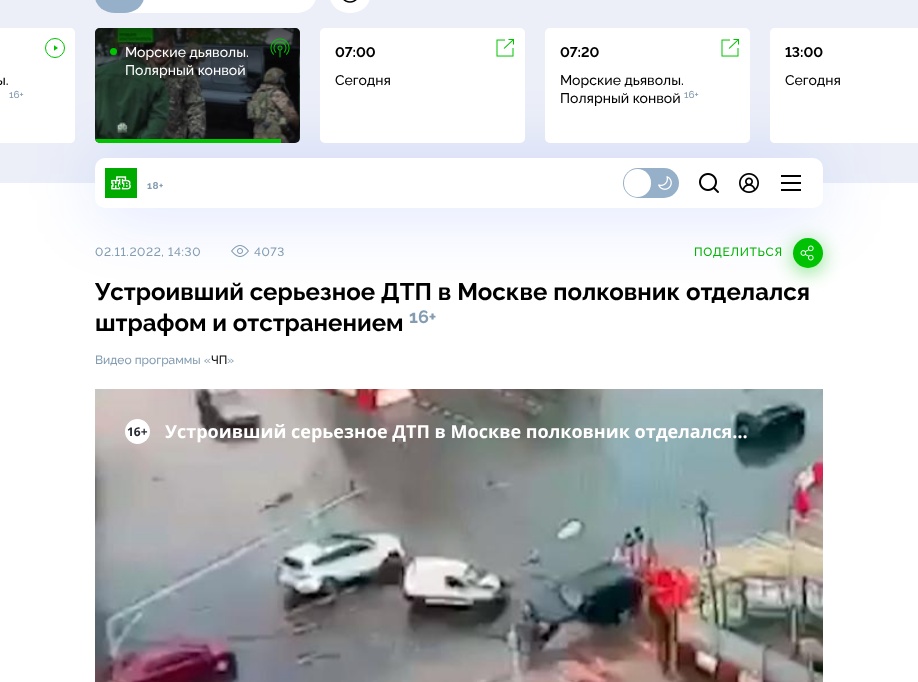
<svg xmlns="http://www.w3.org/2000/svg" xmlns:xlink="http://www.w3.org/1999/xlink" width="918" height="682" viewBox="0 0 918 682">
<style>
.cls-1{font:500 14px Raleway;fill:#000000}
.cls-2{font:500 10px Raleway;fill:#839cb1}
.cls-3{font:500 14px Raleway;fill:#ffffff}
.cls-4{font:bold 14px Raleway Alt;fill:#000000}
.cls-5{font:bold 10px Raleway;letter-spacing:0.5px;fill:#839cb1}
.cls-6{font:500 12px Raleway Alt;letter-spacing:0.6px;fill:#839cb1}
.cls-7{font:500 12px Raleway;letter-spacing:0.6px;fill:#00b400}
.cls-8{font:bold 24px Raleway;fill:#000000}
.cls-9{font:bold 18px Raleway;fill:#839cb1}
.cls-10{font:500 12px Raleway;fill:#839cb1}
.cls-11{font:500 12px Raleway;fill:#000000}
.cls-12{font:bold 12px Open Sans;fill:#252832}
.cls-13{font:bold 18px Open Sans;fill:#ffffff}
</style>
<defs>
<clipPath id="clip1"><rect x="54" y="45" width="5" height="6"/></clipPath>
<linearGradient id="g1" gradientUnits="userSpaceOnUse" x1="198" y1="108" x2="198" y2="28"><stop offset="0" stop-color="#000000" stop-opacity="0"/><stop offset="1" stop-color="#000000" stop-opacity="0.7"/></linearGradient>
<clipPath id="clip2"><rect x="95" y="28" width="205" height="115" rx="5"/></clipPath>
</defs>
<rect width="100%" height="100%" fill="#ffffff"/>
<rect fill="#eceff8" x="0" y="0" width="918" height="183"/>
<rect fill="#ffffff" x="95" y="-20" width="221" height="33" rx="20"/>
<rect fill="#95b0c8" x="95" y="-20" width="49" height="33" rx="20"/>
<rect fill="#ffffff" x="330" y="-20" width="40" height="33" rx="20"/>
<image xlink:href="image0.png" x="343" y="0" width="14" height="3"/>
<image xlink:href="image9.png" x="231" y="245" width="18" height="12"/>
<rect fill="#00c400" fill-opacity="0.5" filter="blur(10px)" x="793" y="242" width="30" height="30" rx="15"/>
<circle fill="#00c400" cx="808" cy="253" r="15"/>
<image xlink:href="image10.png" x="800" y="245" width="14" height="16"/>
<rect fill="#0038ff" fill-opacity="0.15" filter="blur(35px)" x="95" y="162" width="728" height="50" rx="10"/>
<path fill="#ffffff" d="M0 28H70C73 28 75 30 75 33V138C75 141 73 143 70 143H0Z"/>
<circle fill="none" stroke="#00c400" cx="55" cy="48" r="9.5"/>
<g clip-path="url(#clip1)">
<path fill="#00c400" d="M53.5 51V45L58 48Z"/>
</g>
<image xlink:href="image1.png" x="95" y="28" width="205" height="115"/>
<path fill="url(#g1)" d="M100 28H295C298 28 300 30 300 33V108H95V33C95 30 97 28 100 28Z"/>
<circle fill="#00c400" cx="113.5" cy="51.5" r="3.5"/>
<image xlink:href="image2.png" x="270" y="38" width="20" height="20"/>
<g clip-path="url(#clip2)">
<rect fill="#00c400" x="95" y="139" width="186" height="4"/>
</g>
<rect fill="#ffffff" x="320" y="28" width="205" height="115" rx="5"/>
<image xlink:href="image3.png" x="496" y="39" width="18" height="18"/>
<rect fill="#ffffff" x="545" y="28" width="205" height="115" rx="5"/>
<image xlink:href="image3.png" x="721" y="39" width="18" height="18"/>
<path fill="#ffffff" d="M775 28H918V143H775C772 143 770 141 770 138V33C770 30 772 28 775 28Z"/>
<rect fill="#ffffff" x="95" y="158" width="728" height="50" rx="10"/>
<image xlink:href="image4.png" x="105" y="168" width="32" height="30"/>
<rect fill="#95b0c8" x="623" y="168" width="56" height="30" rx="15"/>
<rect fill="#ffffff" x="624" y="169" width="27" height="28" rx="13.5"/>
<image xlink:href="image5.png" x="658" y="176" width="14" height="14"/>
<image xlink:href="image6.png" x="699" y="173" width="20" height="20"/>
<image xlink:href="image7.png" x="739" y="173" width="20" height="20"/>
<image xlink:href="image8.png" x="781" y="175" width="20" height="16"/>
<image xlink:href="image11.png" x="95" y="389" width="728" height="293"/>
<circle fill="#ffffff" cx="137.5" cy="431.5" r="12.5"/>
<text class="cls-1" x="-4" y="85">ы.</text>
<text class="cls-2" x="9" y="98">16+</text>
<text class="cls-3"><tspan x="125" y="57">Морские дьяволы.</tspan><tspan x="125" y="75">Полярный конвой</tspan></text>
<text class="cls-4" x="335" y="57">07:00</text>
<text class="cls-1" x="335" y="85">Сегодня</text>
<text class="cls-4" x="560" y="57">07:20</text>
<text class="cls-1"><tspan x="560" y="85">Морские дьяволы.</tspan><tspan x="560" y="103">Полярный конвой</tspan></text>
<text class="cls-2" x="684" y="98">16+</text>
<text class="cls-4" x="785" y="57">13:00</text>
<text class="cls-1" x="785" y="85">Сегодня</text>
<text class="cls-5" x="147" y="189">18+</text>
<text class="cls-6" x="95" y="256">02.11.2022, 14:30</text>
<text class="cls-6" x="254" y="256">4073</text>
<text class="cls-7" x="694" y="256">ПОДЕЛИТЬСЯ</text>
<text class="cls-8"><tspan x="95" y="300">Устроивший серьезное ДТП в Москве полковник отделался</tspan><tspan x="95" y="331">штрафом и отстранением</tspan></text>
<text class="cls-9" x="409" y="323">16+</text>
<text class="cls-10" x="95" y="364">Видео программы «</text>
<text class="cls-11" x="211" y="364">ЧП</text>
<text class="cls-10" x="227" y="364">»</text>
<text class="cls-12" x="127" y="436">16+</text>
<text class="cls-13" x="165" y="438">Устроивший серьезное ДТП в Москве полковник отделался…</text>
</svg>
